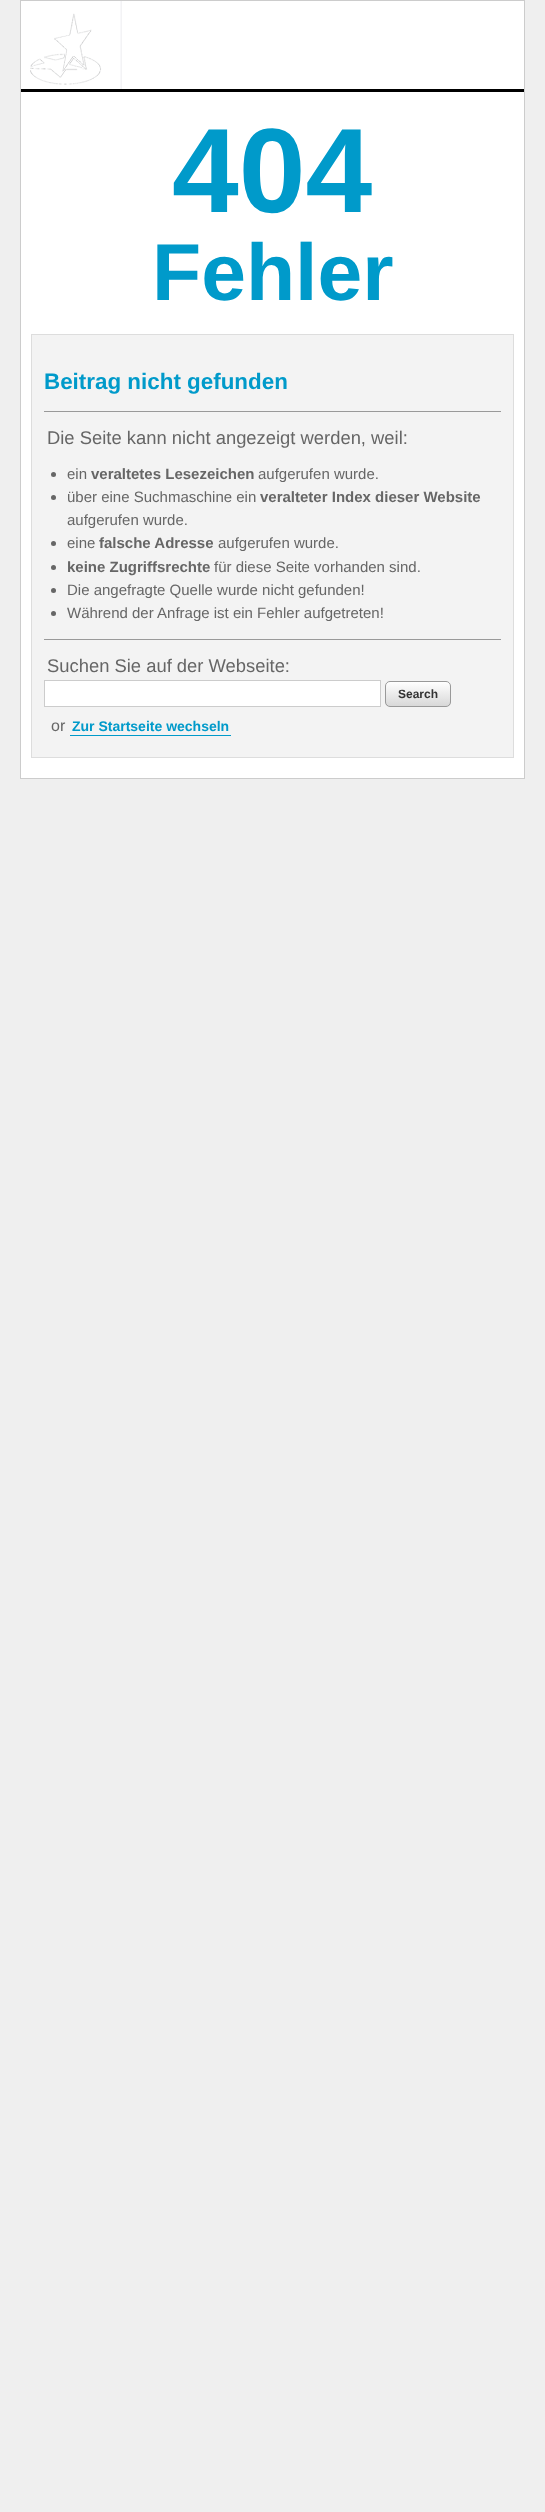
<svg xmlns="http://www.w3.org/2000/svg" xmlns:xlink="http://www.w3.org/1999/xlink" width="545" height="2512" viewBox="0 0 545 2512">
<style>
.cls-1{font:bold 120px Liberation Sans;fill:#009aca}
.cls-2{font:bold 80.5px Liberation Sans;fill:#009aca}
.cls-3{font:bold 22.4px Liberation Sans;fill:#009aca}
.cls-4{font:18.4px Liberation Sans;fill:#666666}
.cls-5{font:15px Liberation Sans;fill:#666666}
.cls-6{font:bold 15px Liberation Sans;fill:#666666}
.cls-7{font:bold 12px Liberation Sans;fill:#333333}
.cls-8{font:16px Liberation Sans;fill:#666666}
.cls-9{font:bold 14px Liberation Sans;fill:#009aca}
</style>
<defs>
<clipPath id="clip1"><rect x="385" y="681" width="66" height="26" rx="5"/></clipPath>
<linearGradient id="g1" gradientUnits="userSpaceOnUse" x1="418" y1="682" x2="418" y2="706"><stop offset="0" stop-color="#ffffff"/><stop offset="1" stop-color="#d8d8d8"/></linearGradient>
</defs>
<rect width="100%" height="100%" fill="#efefef"/>
<rect fill="#ffffff" stroke="#cccccc" x="20.5" y="0.5" width="504" height="778"/>
<rect fill="#000000" x="21" y="89" width="503" height="3"/>
<image xlink:href="image0.png" x="30" y="1" width="92" height="88"/>
<rect fill="#f3f3f3" stroke="#dddddd" x="31.5" y="334.5" width="482" height="423"/>
<rect fill="#999999" x="44" y="411" width="457" height="1"/>
<circle fill="#666666" cx="53.5" cy="474.5" r="2.5"/>
<circle fill="#666666" cx="53.5" cy="497.5" r="2.5"/>
<circle fill="#666666" cx="53.5" cy="543.5" r="2.5"/>
<circle fill="#666666" cx="53.5" cy="567.5" r="2.5"/>
<circle fill="#666666" cx="53.5" cy="590.5" r="2.5"/>
<circle fill="#666666" cx="53.5" cy="613.5" r="2.5"/>
<rect fill="#999999" x="44" y="639" width="457" height="1"/>
<rect fill="#ffffff" stroke="#cccccc" x="44.5" y="680.5" width="336" height="26"/>
<g clip-path="url(#clip1)">
<rect fill="url(#g1)" x="385" y="682" width="66" height="24"/>
</g>
<rect fill="none" stroke="#999999" x="385.5" y="681.5" width="65" height="25" rx="4.5"/>
<rect fill="#009aca" x="70" y="735" width="161" height="1"/>
<text class="cls-1" x="172" y="212">404</text>
<text class="cls-2" x="152" y="300">Fehler</text>
<text class="cls-3" x="44" y="389">Beitrag nicht gefunden</text>
<text class="cls-4" x="47" y="444">Die Seite kann nicht angezeigt werden, weil:</text>
<text class="cls-5" x="67" y="479">ein</text>
<text class="cls-6" x="91" y="479">veraltetes Lesezeichen</text>
<text class="cls-5" x="258" y="479">aufgerufen wurde.</text>
<text class="cls-5" x="67" y="502">über eine Suchmaschine ein</text>
<text class="cls-6" x="260" y="502">veralteter Index dieser Website</text>
<text class="cls-5"><tspan x="67" y="525">aufgerufen wurde.</tspan><tspan x="67" y="548">eine</tspan></text>
<text class="cls-6" x="99" y="548">falsche Adresse</text>
<text class="cls-5" x="218" y="548">aufgerufen wurde.</text>
<text class="cls-6" x="67" y="572">keine Zugriffsrechte</text>
<text class="cls-5" x="214" y="572">für diese Seite vorhanden sind.</text>
<text class="cls-5"><tspan x="67" y="595">Die angefragte Quelle wurde nicht gefunden!</tspan><tspan x="67" y="618">Während der Anfrage ist ein Fehler aufgetreten!</tspan></text>
<text class="cls-4" x="47" y="672">Suchen Sie auf der Webseite:</text>
<text class="cls-7" x="398" y="698">Search</text>
<text class="cls-8" x="51" y="731">or</text>
<text class="cls-9" x="72" y="731">Zur Startseite wechseln</text>
</svg>
